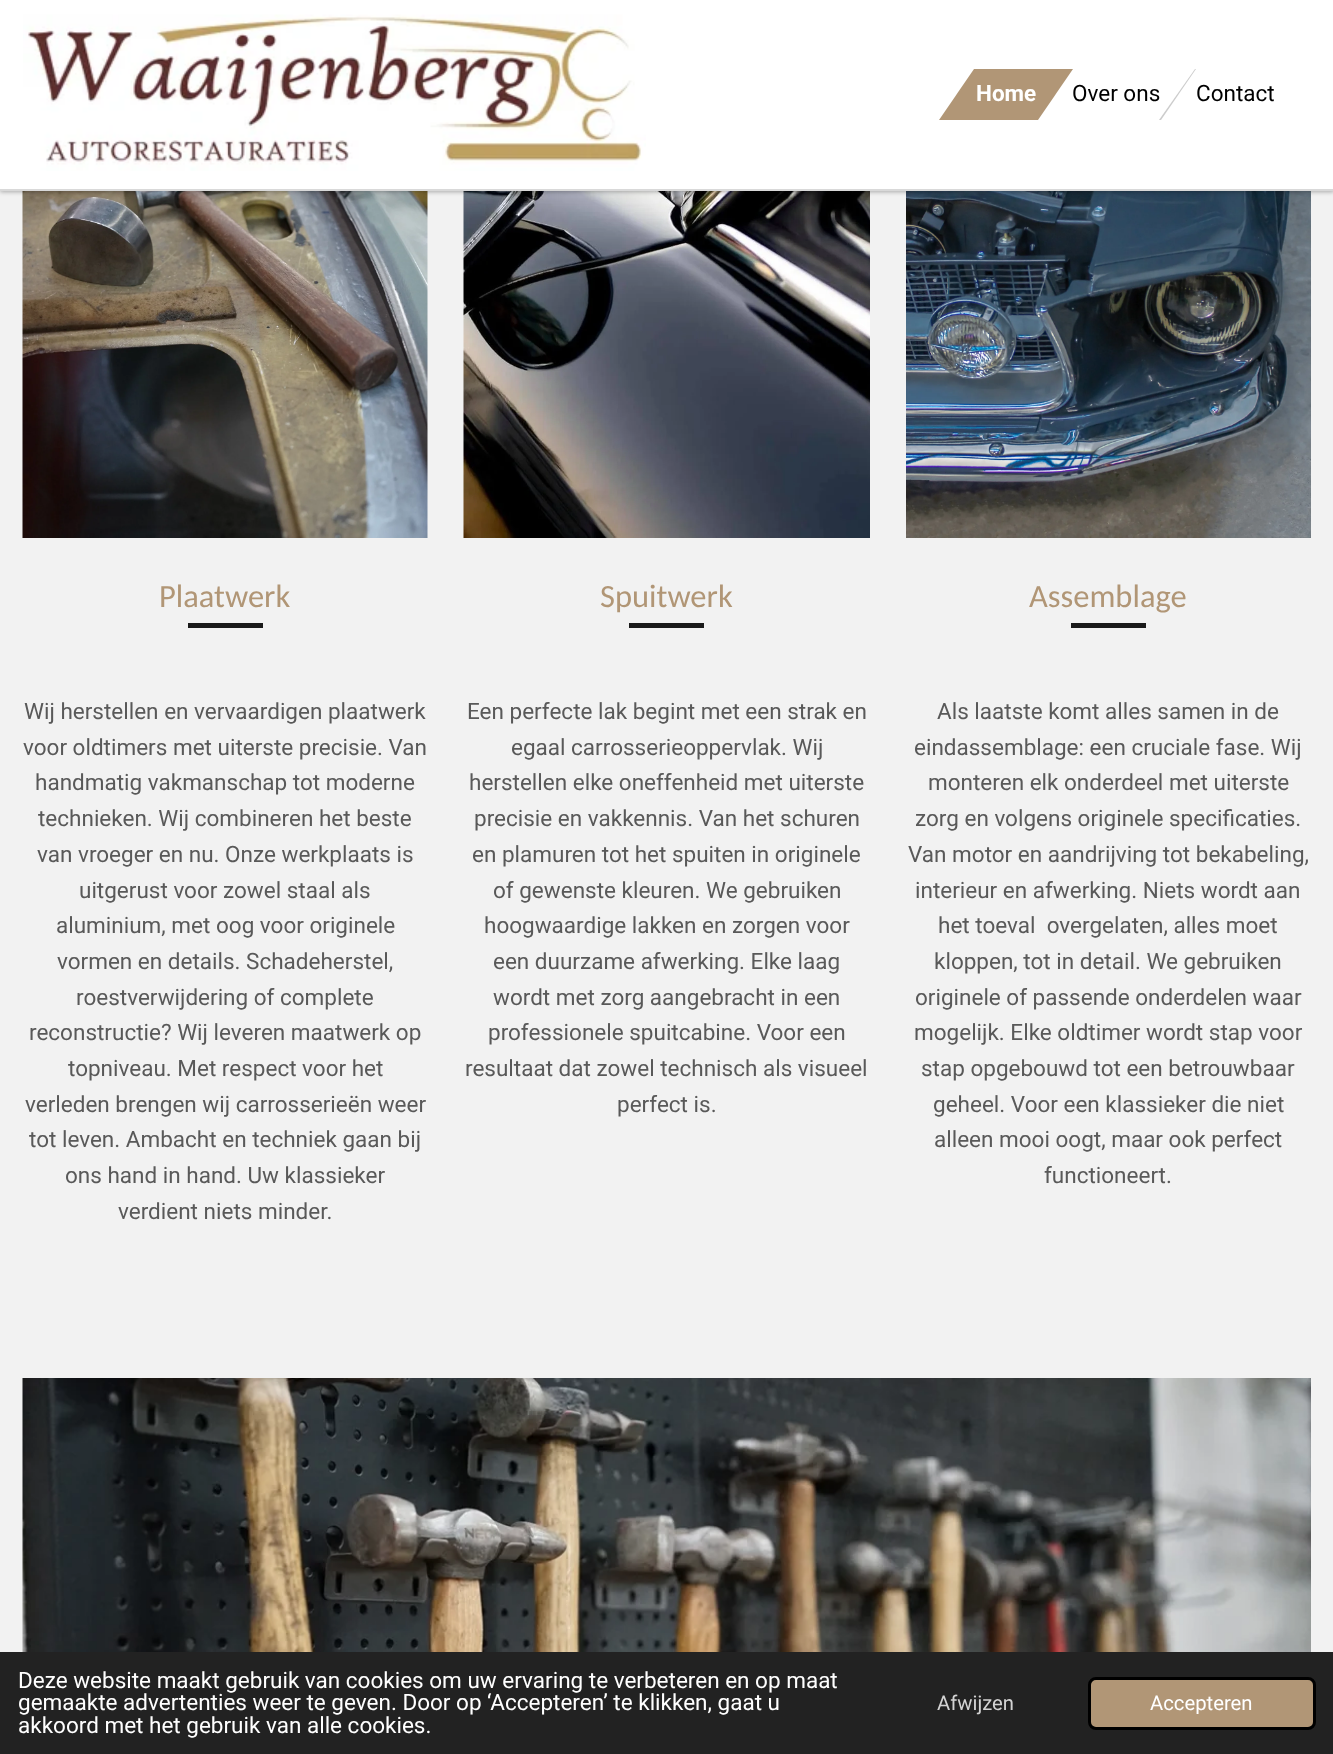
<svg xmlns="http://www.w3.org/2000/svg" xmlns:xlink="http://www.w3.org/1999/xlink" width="1333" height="1754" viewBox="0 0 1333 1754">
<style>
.cls-1{font:bold 22.5px Roboto;fill:#ffffff}
.cls-2{font:22.5px Roboto;fill:#000000}
.cls-3{font:32.5px Carlito;fill:#b19676}
.cls-4{font:22.5px Roboto;fill:#595959}
.cls-5{font:22.5px Roboto;fill:#ffffff}
.cls-6{font:20.25px Roboto;fill:#d3d3d3}
.cls-7{font:20.25px Roboto;fill:#ffffff}
</style>
<rect width="100%" height="100%" fill="#f2f2f2"/>
<image xlink:href="image1.png" x="22" y="191" width="406" height="347"/>
<image xlink:href="image2.png" x="463" y="191" width="407" height="347"/>
<image xlink:href="image3.png" x="906" y="191" width="405" height="347"/>
<rect fill="#000000" fill-opacity="0.3" filter="blur(2px)" x="0" y="2" width="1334" height="190"/>
<rect fill="#ffffff" x="0" y="0" width="1333" height="189"/>
<rect fill="#d9d9d9" x="0" y="189" width="1333" height="2"/>
<image xlink:href="image0.png" x="23" y="14" width="623" height="157"/>
<path fill="#b19676" d="M974 69H1073L1038 120H939Z"/>
<path fill="#cccccc" d="M1195 69H1196L1161 120H1159Z"/>
<rect fill="#1a1a1a" x="188" y="623" width="75" height="5"/>
<rect fill="#1a1a1a" x="629" y="623" width="75" height="5"/>
<rect fill="#1a1a1a" x="1071" y="623" width="75" height="5"/>
<image xlink:href="image4.png" x="22" y="1378" width="1289" height="274"/>
<rect fill="#222222" x="0" y="1652" width="1333" height="102"/>
<rect fill="#b19676" stroke="#000000" stroke-width="3" x="1089.5" y="1678.5" width="225" height="50" rx="6.5"/>
<text class="cls-1" x="976" y="101">Home</text>
<text class="cls-2" x="1072" y="101">Over ons</text>
<text class="cls-2" x="1196" y="101">Contact</text>
<text class="cls-3" x="159" y="607">Plaatwerk</text>
<text class="cls-4" x="24" y="719">Wij herstellen en vervaardigen plaatwerk</text>
<text class="cls-4" x="23" y="755">voor oldtimers met uiterste precisie. Van</text>
<text class="cls-4" x="35" y="790">handmatig vakmanschap tot moderne</text>
<text class="cls-4" x="38" y="826">technieken. Wij combineren het beste</text>
<text class="cls-4" x="37" y="862">van vroeger en nu. Onze werkplaats is</text>
<text class="cls-4" x="79" y="898">uitgerust voor zowel staal als</text>
<text class="cls-4" x="56" y="933">aluminium, met oog voor originele</text>
<text class="cls-4" x="57" y="969">vormen en details. Schadeherstel,</text>
<text class="cls-4" x="76" y="1005">roestverwijdering of complete</text>
<text class="cls-4" x="29" y="1040">reconstructie? Wij leveren maatwerk op</text>
<text class="cls-4" x="68" y="1076">topniveau. Met respect voor het</text>
<text class="cls-4" x="25" y="1112">verleden brengen wij carrosserieën weer</text>
<text class="cls-4" x="29" y="1147">tot leven. Ambacht en techniek gaan bij</text>
<text class="cls-4" x="65" y="1183">ons hand in hand. Uw klassieker</text>
<text class="cls-4" x="118" y="1219">verdient niets minder.</text>
<text class="cls-3" x="600" y="607">Spuitwerk</text>
<text class="cls-4" x="467" y="719">Een perfecte lak begint met een strak en</text>
<text class="cls-4" x="511" y="755">egaal carrosserieoppervlak. Wij</text>
<text class="cls-4" x="469" y="790">herstellen elke oneffenheid met uiterste</text>
<text class="cls-4" x="474" y="826">precisie en vakkennis. Van het schuren</text>
<text class="cls-4" x="472" y="862">en plamuren tot het spuiten in originele</text>
<text class="cls-4" x="493" y="898">of gewenste kleuren. We gebruiken</text>
<text class="cls-4" x="484" y="933">hoogwaardige lakken en zorgen voor</text>
<text class="cls-4"><tspan x="493" y="969">een duurzame afwerking. Elke laag</tspan><tspan x="493" y="1005">wordt met zorg aangebracht in een</tspan></text>
<text class="cls-4" x="488" y="1040">professionele spuitcabine. Voor een</text>
<text class="cls-4" x="465" y="1076">resultaat dat zowel technisch als visueel</text>
<text class="cls-4" x="617" y="1112">perfect is.</text>
<text class="cls-3" x="1029" y="607">Assemblage</text>
<text class="cls-4" x="937" y="719">Als laatste komt alles samen in de</text>
<text class="cls-4" x="914" y="755">eindassemblage: een cruciale fase. Wij</text>
<text class="cls-4" x="928" y="790">monteren elk onderdeel met uiterste</text>
<text class="cls-4" x="915" y="826">zorg en volgens originele specificaties.</text>
<text class="cls-4" x="908" y="862">Van motor en aandrijving tot bekabeling,</text>
<text class="cls-4" x="915" y="898">interieur en afwerking. Niets wordt aan</text>
<text class="cls-4" xml:space="preserve" x="938" y="933">het toeval  overgelaten, alles moet</text>
<text class="cls-4" x="934" y="969">kloppen, tot in detail. We gebruiken</text>
<text class="cls-4" x="915" y="1005">originele of passende onderdelen waar</text>
<text class="cls-4" x="914" y="1040">mogelijk. Elke oldtimer wordt stap voor</text>
<text class="cls-4" x="921" y="1076">stap opgebouwd tot een betrouwbaar</text>
<text class="cls-4" x="933" y="1112">geheel. Voor een klassieker die niet</text>
<text class="cls-4" x="934" y="1147">alleen mooi oogt, maar ook perfect</text>
<text class="cls-4" x="1044" y="1183">functioneert.</text>
<text class="cls-5"><tspan x="18" y="1688">Deze website maakt gebruik van cookies om uw ervaring te verbeteren en op maat</tspan><tspan x="18" y="1710">gemaakte advertenties weer te geven. Door op ‘Accepteren’ te klikken, gaat u</tspan><tspan x="18" y="1733">akkoord met het gebruik van alle cookies.</tspan></text>
<text class="cls-6" x="937" y="1710">Afwijzen</text>
<text class="cls-7" x="1150" y="1710">Accepteren</text>
</svg>
